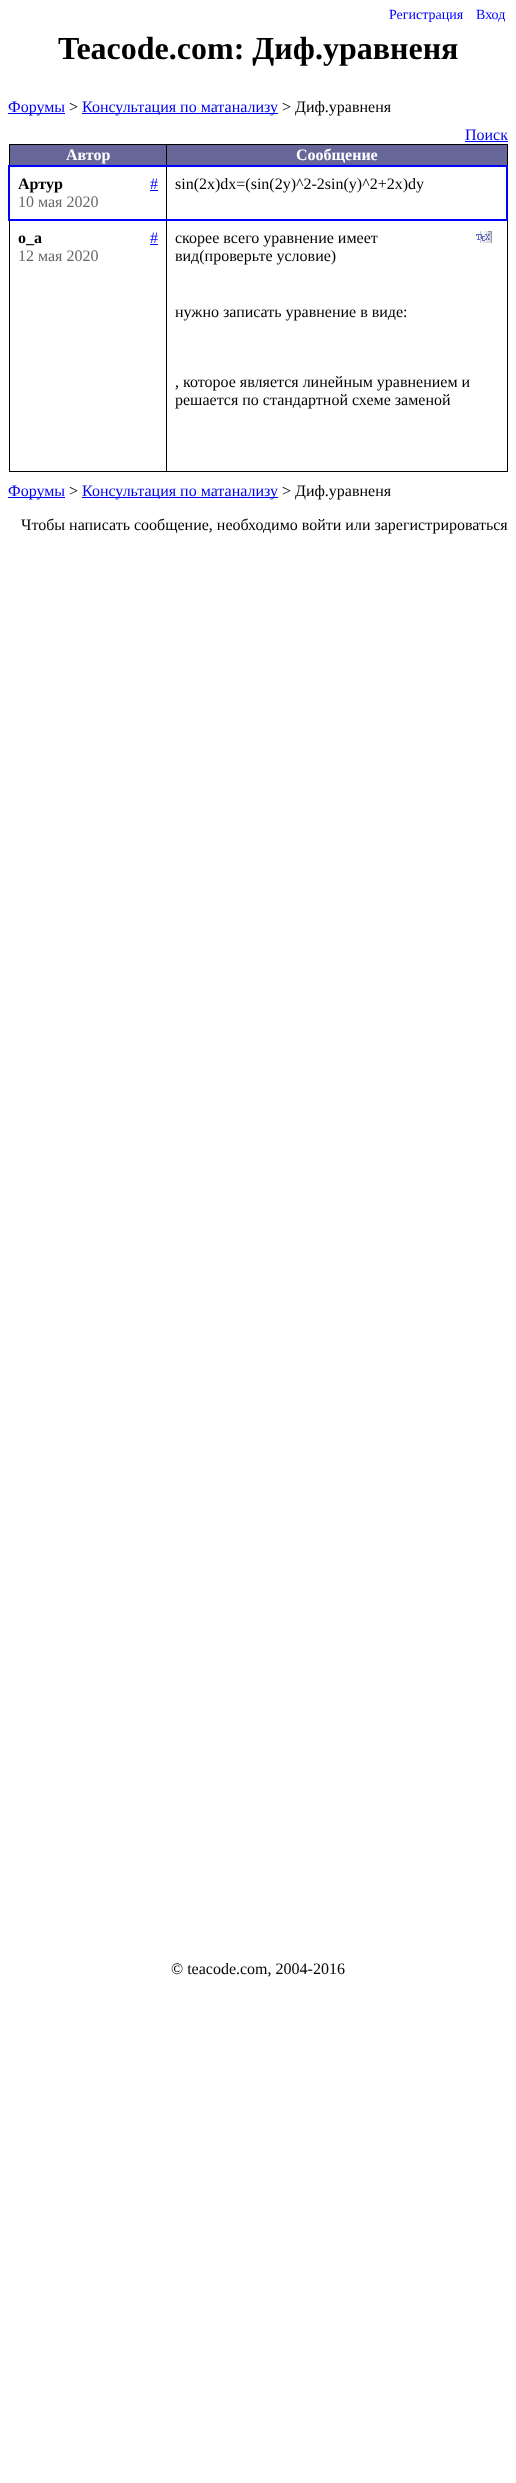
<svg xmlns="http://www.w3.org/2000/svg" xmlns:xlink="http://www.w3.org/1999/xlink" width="516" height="2483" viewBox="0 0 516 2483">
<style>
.cls-1{font:14px Liberation Serif;fill:#0000ff}
.cls-2{font:bold 32px Liberation Serif;fill:#000000}
.cls-3{font:16px Liberation Serif;fill:#0000ee}
.cls-4{font:16px Liberation Serif;fill:#000000}
.cls-5{font:bold 16px Liberation Serif;fill:#ffffff}
.cls-6{font:bold 16px Liberation Serif;fill:#000000}
.cls-7{font:16px Liberation Serif;fill:#0000ff}
.cls-8{font:16px Liberation Serif;fill:#666666}
</style>
<rect width="100%" height="100%" fill="#ffffff"/>
<rect fill="#0000ee" x="8" y="113" width="57" height="1"/>
<rect fill="#0000ee" x="82" y="113" width="196" height="1"/>
<rect fill="#0000ee" x="465" y="141" width="43" height="1"/>
<rect fill="#666699" x="10" y="145" width="497" height="20"/>
<rect fill="#000000" x="166" y="144" width="342" height="1"/>
<rect fill="#000000" x="507" y="219" width="1" height="253"/>
<rect fill="#000000" x="166" y="471" width="342" height="1"/>
<rect fill="#000000" x="166" y="165" width="1" height="307"/>
<rect fill="#000000" x="166" y="144" width="1" height="22"/>
<rect fill="#000000" x="9" y="144" width="158" height="1"/>
<rect fill="#000000" x="9" y="144" width="1" height="22"/>
<rect fill="#000000" x="507" y="144" width="1" height="22"/>
<rect fill="#0000ff" x="8" y="165" width="500" height="2"/>
<rect fill="#0000ff" x="506" y="165" width="2" height="56"/>
<rect fill="#000000" x="9" y="471" width="158" height="1"/>
<rect fill="#000000" x="9" y="219" width="1" height="253"/>
<rect fill="#0000ff" x="8" y="219" width="500" height="2"/>
<rect fill="#0000ff" x="8" y="165" width="2" height="56"/>
<rect fill="#0000ff" x="150" y="190" width="8" height="1"/>
<rect fill="#0000ff" x="150" y="244" width="8" height="1"/>
<image xlink:href="image0.png" x="476" y="231" width="16" height="12"/>
<rect fill="#0000ee" x="8" y="497" width="57" height="1"/>
<rect fill="#0000ee" x="82" y="497" width="196" height="1"/>
<text class="cls-1" x="389" y="19">Регистрация</text>
<text class="cls-1" x="476" y="19">Вход</text>
<text class="cls-2" x="58" y="59">Teacode.com: Диф.уравненя</text>
<text class="cls-3" x="8" y="112">Форумы</text>
<text class="cls-4" x="69" y="112">&gt;</text>
<text class="cls-3" x="82" y="112">Консультация по матанализу</text>
<text class="cls-4" x="282" y="112">&gt; Диф.уравненя</text>
<text class="cls-3" x="465" y="140">Поиск</text>
<text class="cls-5" x="66" y="160">Автор</text>
<text class="cls-5" x="296" y="160">Сообщение</text>
<text class="cls-6" x="18" y="189">Артур</text>
<text class="cls-7" x="150" y="189">#</text>
<text class="cls-8" x="18" y="207">10 мая 2020</text>
<text class="cls-4" x="175" y="189">sin(2x)dx=(sin(2y)^2-2sin(y)^2+2x)dy</text>
<text class="cls-6" x="18" y="243">o_a</text>
<text class="cls-7" x="150" y="243">#</text>
<text class="cls-8" x="18" y="261">12 мая 2020</text>
<text class="cls-4"><tspan x="175" y="243">скорее всего уравнение имеет</tspan><tspan x="175" y="261">вид(проверьте условие)</tspan></text>
<text class="cls-4" x="175" y="317">нужно записать уравнение в виде:</text>
<text class="cls-4"><tspan x="175" y="387">, которое является линейным уравнением и</tspan><tspan x="175" y="405">решается по стандартной схеме заменой</tspan></text>
<text class="cls-3" x="8" y="496">Форумы</text>
<text class="cls-4" x="69" y="496">&gt;</text>
<text class="cls-3" x="82" y="496">Консультация по матанализу</text>
<text class="cls-4" x="282" y="496">&gt; Диф.уравненя</text>
<text class="cls-4" x="21" y="530">Чтобы написать сообщение, необходимо войти или зарегистрироваться</text>
<text class="cls-4" x="171" y="1974">© teacode.com, 2004-2016</text>
</svg>
